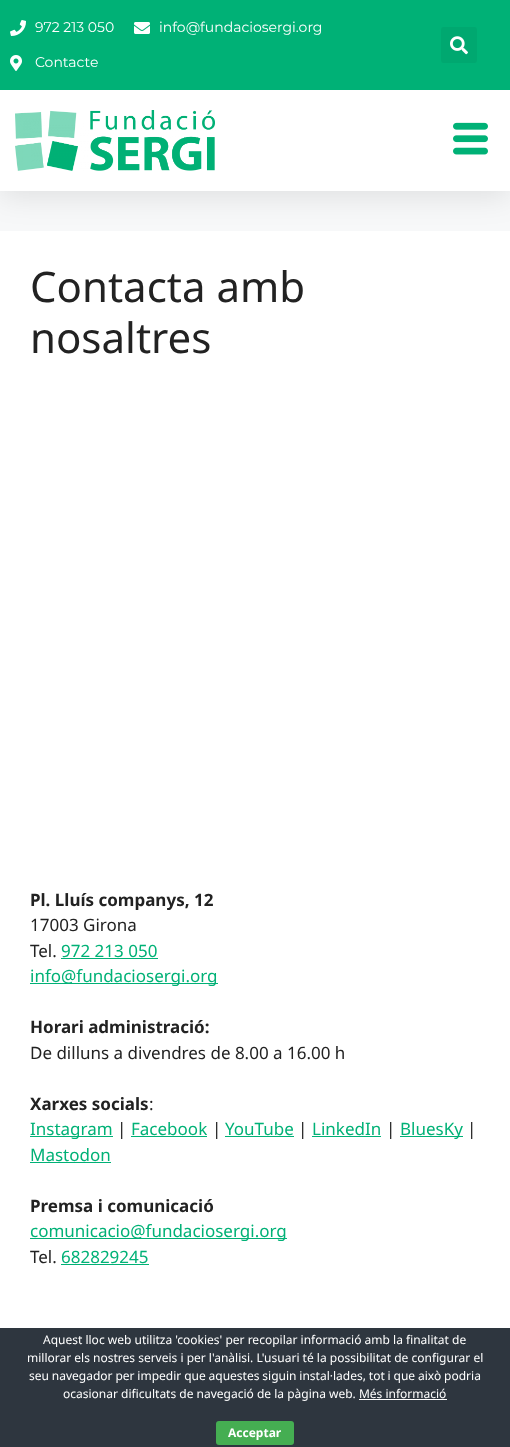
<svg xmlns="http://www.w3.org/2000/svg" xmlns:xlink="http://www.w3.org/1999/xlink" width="510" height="1447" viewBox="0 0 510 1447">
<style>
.cls-1{font:14px Montserrat;fill:#ffffff}
.cls-2{font:42px Noto Sans;fill:#222222}
.cls-3{font:bold 17px Noto Sans;fill:#222222}
.cls-4{font:17px Noto Sans;fill:#222222}
.cls-5{font:17px Noto Sans;fill:#00b176}
.cls-6{font:12px Noto Sans;fill:#ffffff}
.cls-7{font:bold 12px Noto Sans;fill:#ffffff}
</style>
<rect width="100%" height="100%" fill="#f7f8f9"/>
<rect fill="#ffffff" x="0" y="231" width="510" height="1097"/>
<rect fill="#000000" fill-opacity="0.1" filter="blur(15px)" x="0" y="5" width="510" height="191"/>
<rect fill="#00b176" x="0" y="0" width="510" height="90"/>
<image xlink:href="image0.png" x="10" y="20" width="16" height="16"/>
<image xlink:href="image1.png" x="134" y="22" width="16" height="12"/>
<image xlink:href="image2.png" x="10" y="55" width="12" height="16"/>
<rect fill="#00a870" x="441" y="27" width="36" height="36" rx="3"/>
<image xlink:href="image3.png" x="450" y="36" width="18" height="19"/>
<rect fill="#ffffff" x="0" y="90" width="510" height="101"/>
<image xlink:href="image4.png" x="15" y="110" width="200" height="61"/>
<image xlink:href="image5.png" x="453" y="122" width="35" height="33"/>
<rect fill="#00b176" x="61" y="958" width="97" height="1"/>
<rect fill="#00b176" x="30" y="983" width="188" height="1"/>
<rect fill="#00b176" x="30" y="1136" width="83" height="1"/>
<rect fill="#00b176" x="131" y="1136" width="76" height="1"/>
<rect fill="#00b176" x="225" y="1136" width="69" height="1"/>
<rect fill="#00b176" x="312" y="1136" width="69" height="1"/>
<rect fill="#00b176" x="400" y="1136" width="63" height="1"/>
<rect fill="#00b176" x="30" y="1162" width="81" height="1"/>
<rect fill="#00b176" x="30" y="1238" width="257" height="1"/>
<rect fill="#00b176" x="61" y="1264" width="88" height="1"/>
<rect fill="#2e363f" x="0" y="1328" width="510" height="119"/>
<rect fill="#ffffff" x="359" y="1399" width="88" height="1"/>
<rect fill="#45ae52" x="216" y="1421" width="78" height="24" rx="3"/>
<text class="cls-1" x="35" y="32">972 213 050</text>
<text class="cls-1" x="159" y="32">info@fundaciosergi.org</text>
<text class="cls-1" x="35" y="67">Contacte</text>
<text class="cls-2"><tspan x="30" y="302">Contacta amb</tspan><tspan x="30" y="353">nosaltres</tspan></text>
<text class="cls-3" x="30" y="906">Pl. Lluís companys, 12</text>
<text class="cls-4"><tspan x="30" y="931">17003 Girona</tspan><tspan x="30" y="957">Tel.</tspan></text>
<text class="cls-5" x="61" y="957">972 213 050</text>
<text class="cls-5" x="30" y="982">info@fundaciosergi.org</text>
<text class="cls-3" x="30" y="1033">Horari administració:</text>
<text class="cls-4" x="30" y="1059">De dilluns a divendres de 8.00 a 16.00 h</text>
<text class="cls-3" x="30" y="1110">Xarxes socials</text>
<text class="cls-4" x="149" y="1110">:</text>
<text class="cls-5" x="30" y="1135">Instagram</text>
<text class="cls-4" x="117" y="1135">|</text>
<text class="cls-5" x="131" y="1135">Facebook</text>
<text class="cls-4" x="212" y="1135">|</text>
<text class="cls-5" x="225" y="1135">YouTube</text>
<text class="cls-4" x="298" y="1135">|</text>
<text class="cls-5" x="312" y="1135">LinkedIn</text>
<text class="cls-4" x="386" y="1135">|</text>
<text class="cls-5" x="400" y="1135">BluesKy</text>
<text class="cls-4" x="467" y="1135">|</text>
<text class="cls-5" x="30" y="1161">Mastodon</text>
<text class="cls-3" x="30" y="1212">Premsa i comunicació</text>
<text class="cls-5" x="30" y="1237">comunicacio@fundaciosergi.org</text>
<text class="cls-4" x="30" y="1263">Tel.</text>
<text class="cls-5" x="61" y="1263">682829245</text>
<text class="cls-6" x="43" y="1344">Aquest lloc web utilitza 'cookies' per recopilar informació amb la finalitat de</text>
<text class="cls-6" x="27" y="1362">millorar els nostres serveis i per l'anàlisi. L'usuari té la possibilitat de configurar el</text>
<text class="cls-6" x="29" y="1380" word-spacing="-0.25">seu navegador per impedir que aquestes siguin instal·lades, tot i que això podria</text>
<text class="cls-6" x="63" y="1398">ocasionar dificultats de navegació de la pàgina web. Més informació</text>
<text class="cls-7" x="228" y="1437">Acceptar</text>
</svg>
